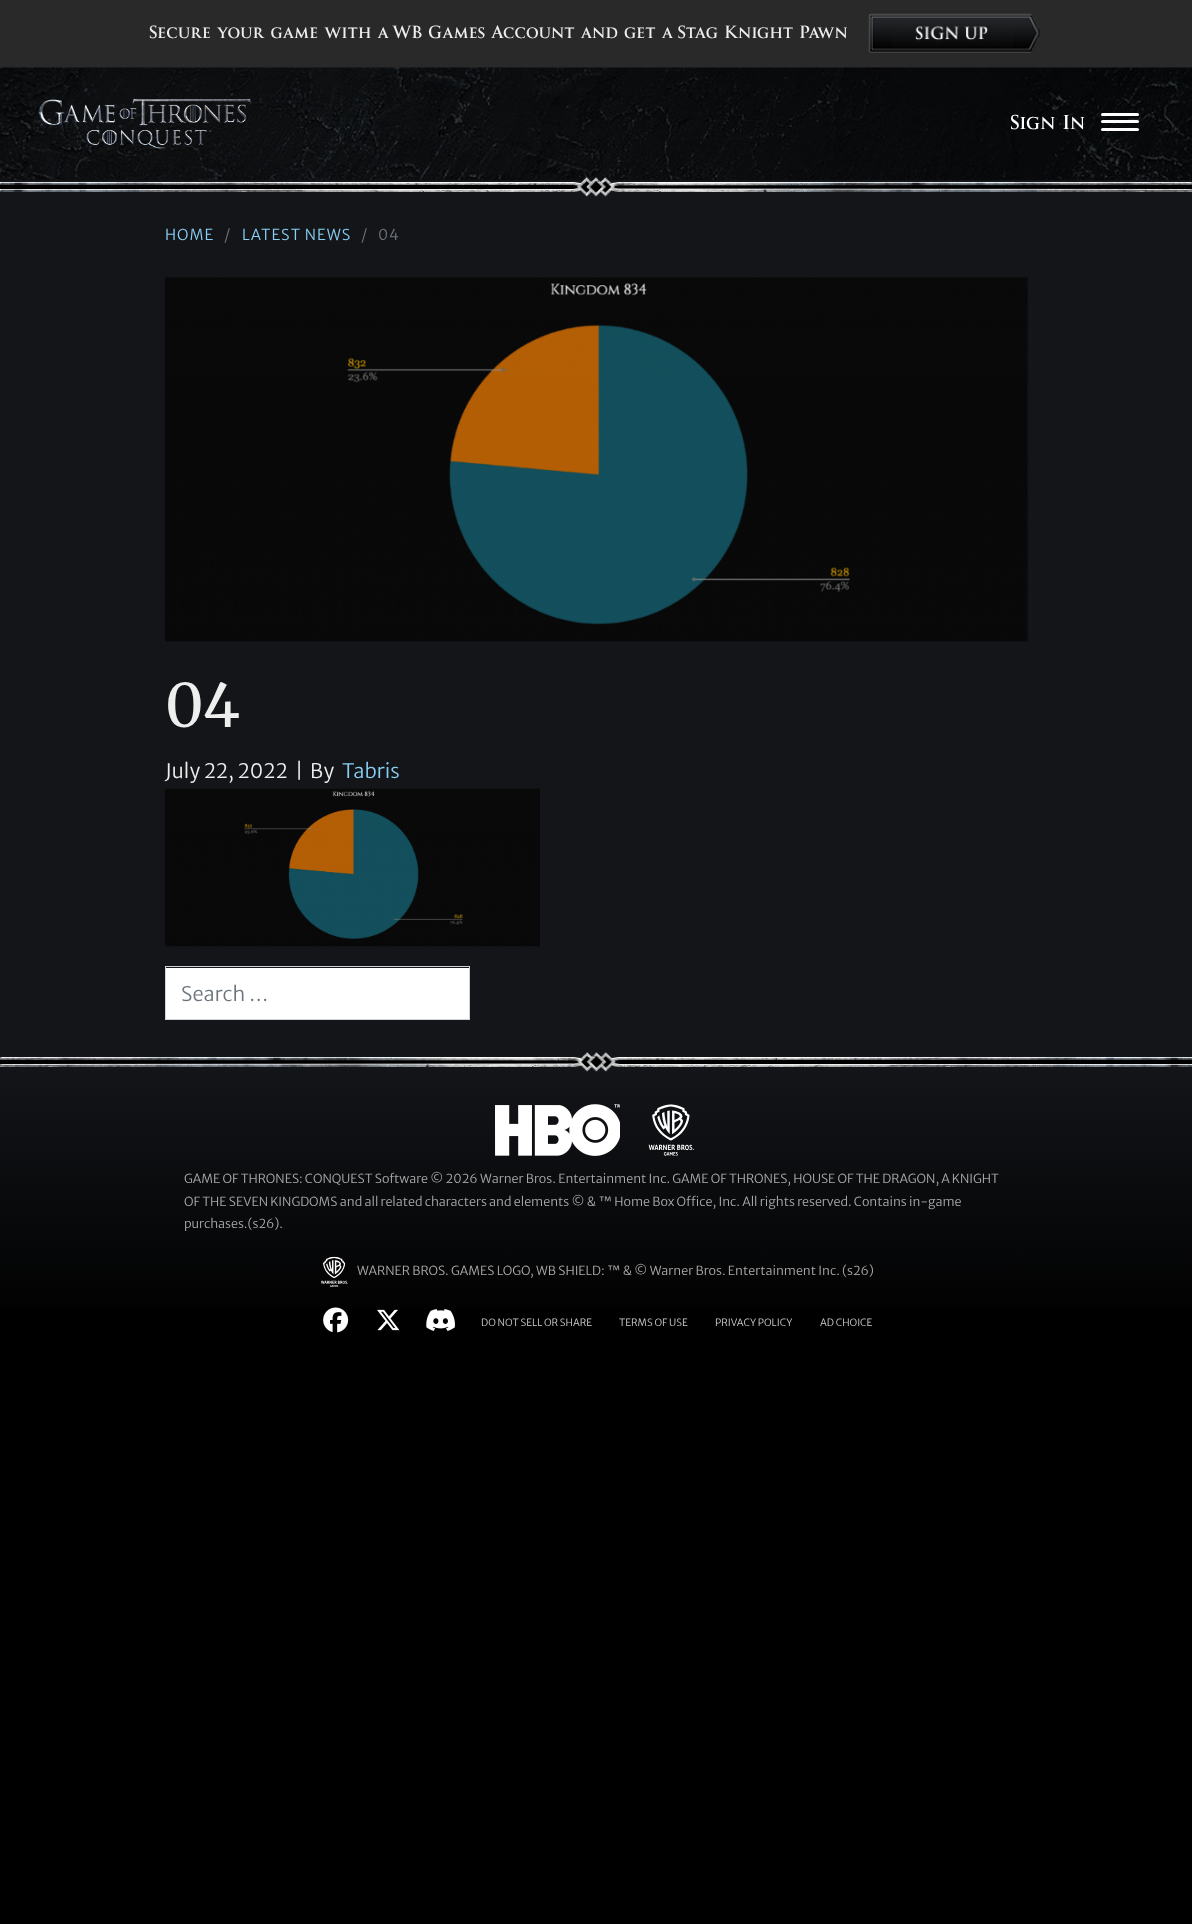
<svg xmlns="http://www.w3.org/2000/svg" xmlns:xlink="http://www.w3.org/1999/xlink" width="1192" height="1924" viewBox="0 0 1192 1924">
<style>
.cls-1{font:bold 17.5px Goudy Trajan;fill:#eeeeee}
.cls-2{font:bold 20px Goudy Trajan;fill:#ffffff}
.cls-3{font:300 15px Merriweather Sans;letter-spacing:1px;fill:#88cff3}
.cls-4{font:300 15px Merriweather Sans;letter-spacing:1px;fill:#6c757d}
.cls-5{font:300 60px Merriweather;fill:#eeeeee}
.cls-6{font:300 20px Merriweather Sans;fill:#eeeeee}
.cls-7{font:300 20px Merriweather Sans;fill:#88cff3}
.cls-8{font:300 20px Merriweather Sans;fill:#6c757d}
.cls-9{font:300 12.5px Merriweather Sans;fill:#aaaaaa}
.cls-10{font:300 10px Merriweather Sans;fill:#cccccc}
</style>
<defs>
<linearGradient id="g1" gradientUnits="userSpaceOnUse" x1="596" y1="1066" x2="596" y2="1336"><stop offset="0" stop-color="#131519"/><stop offset="1" stop-color="#000000"/></linearGradient>
</defs>
<rect width="100%" height="100%" fill="#000000"/>
<rect fill="#131519" x="0" y="180" width="1192" height="879"/>
<rect fill="#292929" x="0" y="0" width="1192" height="68"/>
<image xlink:href="image0.png" x="868" y="13" width="174" height="40"/>
<image xlink:href="image1.png" x="0" y="67" width="1192" height="113"/>
<image xlink:href="image2.png" x="38" y="98" width="214" height="51"/>
<rect fill="#ffffff" x="1101" y="113" width="38" height="3" rx="1.5"/>
<rect fill="#ffffff" x="1101" y="120" width="38" height="3" rx="1.5"/>
<rect fill="#ffffff" x="1101" y="128" width="38" height="3" rx="1.5"/>
<image xlink:href="image3.png" x="0" y="177" width="1192" height="20"/>
<image xlink:href="image4.png" x="165" y="277" width="863" height="365"/>
<image xlink:href="image5.png" x="165" y="788" width="375" height="159"/>
<rect fill="#ffffff" x="166" y="968" width="303" height="51"/>
<rect fill="none" stroke="#ced4da" x="165.5" y="966.5" width="304" height="53"/>
<rect fill="url(#g1)" x="0" y="1066" width="1192" height="243"/>
<image xlink:href="image6.png" x="0" y="1052" width="1192" height="20"/>
<image xlink:href="image7.png" x="495" y="1104" width="125" height="52"/>
<image xlink:href="image8.png" x="648" y="1104" width="46" height="52"/>
<image xlink:href="image9.png" x="321" y="1256" width="27" height="32"/>
<image xlink:href="image10.png" x="323" y="1307" width="26" height="26"/>
<image xlink:href="image11.png" x="377" y="1309" width="23" height="22"/>
<image xlink:href="image12.png" x="426" y="1309" width="29" height="22"/>
<text class="cls-1" x="149" y="38">Secure your game with a WB Games Account and get a Stag Knight Pawn</text>
<text class="cls-2" x="1010" y="129">Sign In</text>
<text class="cls-3" x="165" y="240">HOME</text>
<text class="cls-4" x="224" y="240">/</text>
<text class="cls-3" x="242" y="240">LATEST NEWS</text>
<text class="cls-4" x="361" y="240">/</text>
<text class="cls-4" x="378" y="240">04</text>
<text class="cls-5" x="165" y="727">04</text>
<text class="cls-6" x="165" y="778">July 22, 2022</text>
<text class="cls-6" x="295" y="778">|</text>
<text class="cls-6" x="310" y="778">By</text>
<text class="cls-7" x="342" y="778">Tabris</text>
<text class="cls-8" x="181" y="1001">Search …</text>
<text class="cls-9"><tspan x="184" y="1183">GAME OF THRONES: CONQUEST Software © 2026 Warner Bros. Entertainment Inc. GAME OF THRONES, HOUSE OF THE DRAGON, A KNIGHT</tspan><tspan x="184" y="1206">OF THE SEVEN KINGDOMS and all related characters and elements © &amp; ™ Home Box Office, Inc. All rights reserved. Contains in-game</tspan><tspan x="184" y="1228">purchases.(s26).</tspan></text>
<text class="cls-9" x="357" y="1275">WARNER BROS. GAMES LOGO, WB SHIELD: ™ &amp; © Warner Bros. Entertainment Inc. (s26)</text>
<text class="cls-10" x="481" y="1326">DO NOT SELL OR SHARE</text>
<text class="cls-10" x="619" y="1326">TERMS OF USE</text>
<text class="cls-10" x="715" y="1326">PRIVACY POLICY</text>
<text class="cls-10" x="820" y="1326">AD CHOICE</text>
</svg>
